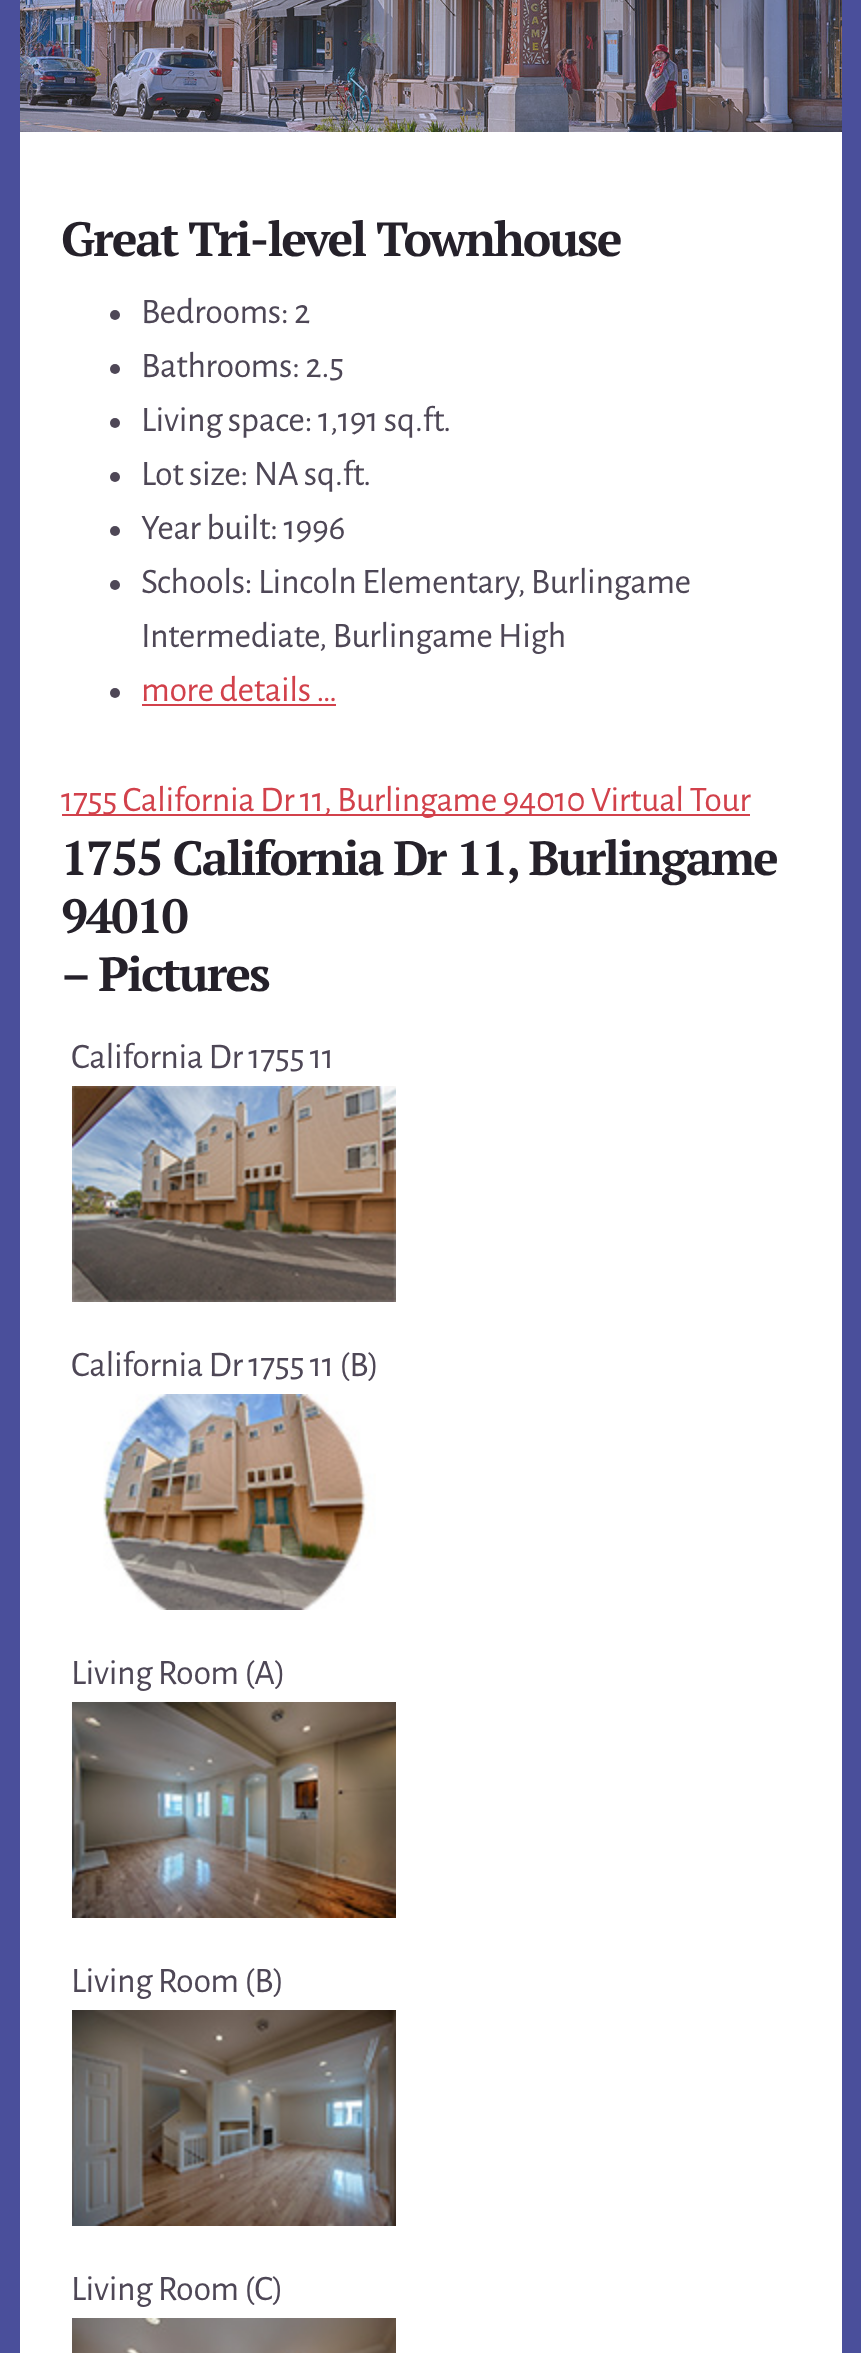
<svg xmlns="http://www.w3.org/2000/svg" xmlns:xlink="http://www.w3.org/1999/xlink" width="861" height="2353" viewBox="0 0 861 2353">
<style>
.cls-1{font:bold 48px PT Serif;letter-spacing:-2px;fill:#25212a}
.cls-2{font:36px Alegreya Sans;letter-spacing:-0.4px;fill:#4e4756}
.cls-3{font:36px Alegreya Sans;letter-spacing:-0.4px;fill:#d2414b}
</style>
<rect width="100%" height="100%" fill="#4a4f9b"/>
<rect fill="#ffffff" x="20" y="0" width="822" height="2353"/>
<image xlink:href="image0.png" x="20" y="0" width="822" height="132"/>
<circle fill="#4e4756" cx="115" cy="315" r="5"/>
<circle fill="#4e4756" cx="115" cy="369" r="5"/>
<circle fill="#4e4756" cx="115" cy="423" r="5"/>
<circle fill="#4e4756" cx="115" cy="477" r="5"/>
<circle fill="#4e4756" cx="115" cy="531" r="5"/>
<circle fill="#4e4756" cx="115" cy="585" r="5"/>
<circle fill="#4e4756" cx="115" cy="693" r="5"/>
<rect fill="#d2414b" x="142" y="704" width="194" height="2"/>
<rect fill="#d2414b" x="62" y="814" width="688" height="2"/>
<image xlink:href="image1.png" x="72" y="1086" width="324" height="216"/>
<image xlink:href="image2.png" x="103" y="1394" width="273" height="216"/>
<image xlink:href="image3.png" x="72" y="1702" width="324" height="216"/>
<image xlink:href="image4.png" x="72" y="2010" width="324" height="216"/>
<image xlink:href="image5.png" x="72" y="2318" width="324" height="35"/>
<text class="cls-1" x="61" y="256">Great Tri-level Townhouse</text>
<text class="cls-2"><tspan x="141" y="323">Bedrooms: 2</tspan><tspan x="141" y="377">Bathrooms: 2.5</tspan><tspan x="141" y="431">Living space: 1,191 sq.ft.</tspan><tspan x="141" y="485">Lot size: NA sq.ft.</tspan><tspan x="141" y="539">Year built: 1996</tspan><tspan x="141" y="593">Schools: Lincoln Elementary, Burlingame</tspan><tspan x="141" y="647">Intermediate, Burlingame High</tspan></text>
<text class="cls-3" x="141" y="701">more details …</text>
<text class="cls-3" x="61" y="811">1755 California Dr 11, Burlingame 94010 Virtual Tour</text>
<text class="cls-1"><tspan x="61" y="875">1755 California Dr 11, Burlingame</tspan><tspan x="61" y="933">94010</tspan><tspan x="61" y="991">– Pictures</tspan></text>
<text class="cls-2" x="71" y="1068">California Dr 1755 11</text>
<text class="cls-2" x="71" y="1376">California Dr 1755 11 (B)</text>
<text class="cls-2" x="71" y="1684">Living Room (A)</text>
<text class="cls-2" x="71" y="1992">Living Room (B)</text>
<text class="cls-2" x="71" y="2300">Living Room (C)</text>
</svg>
